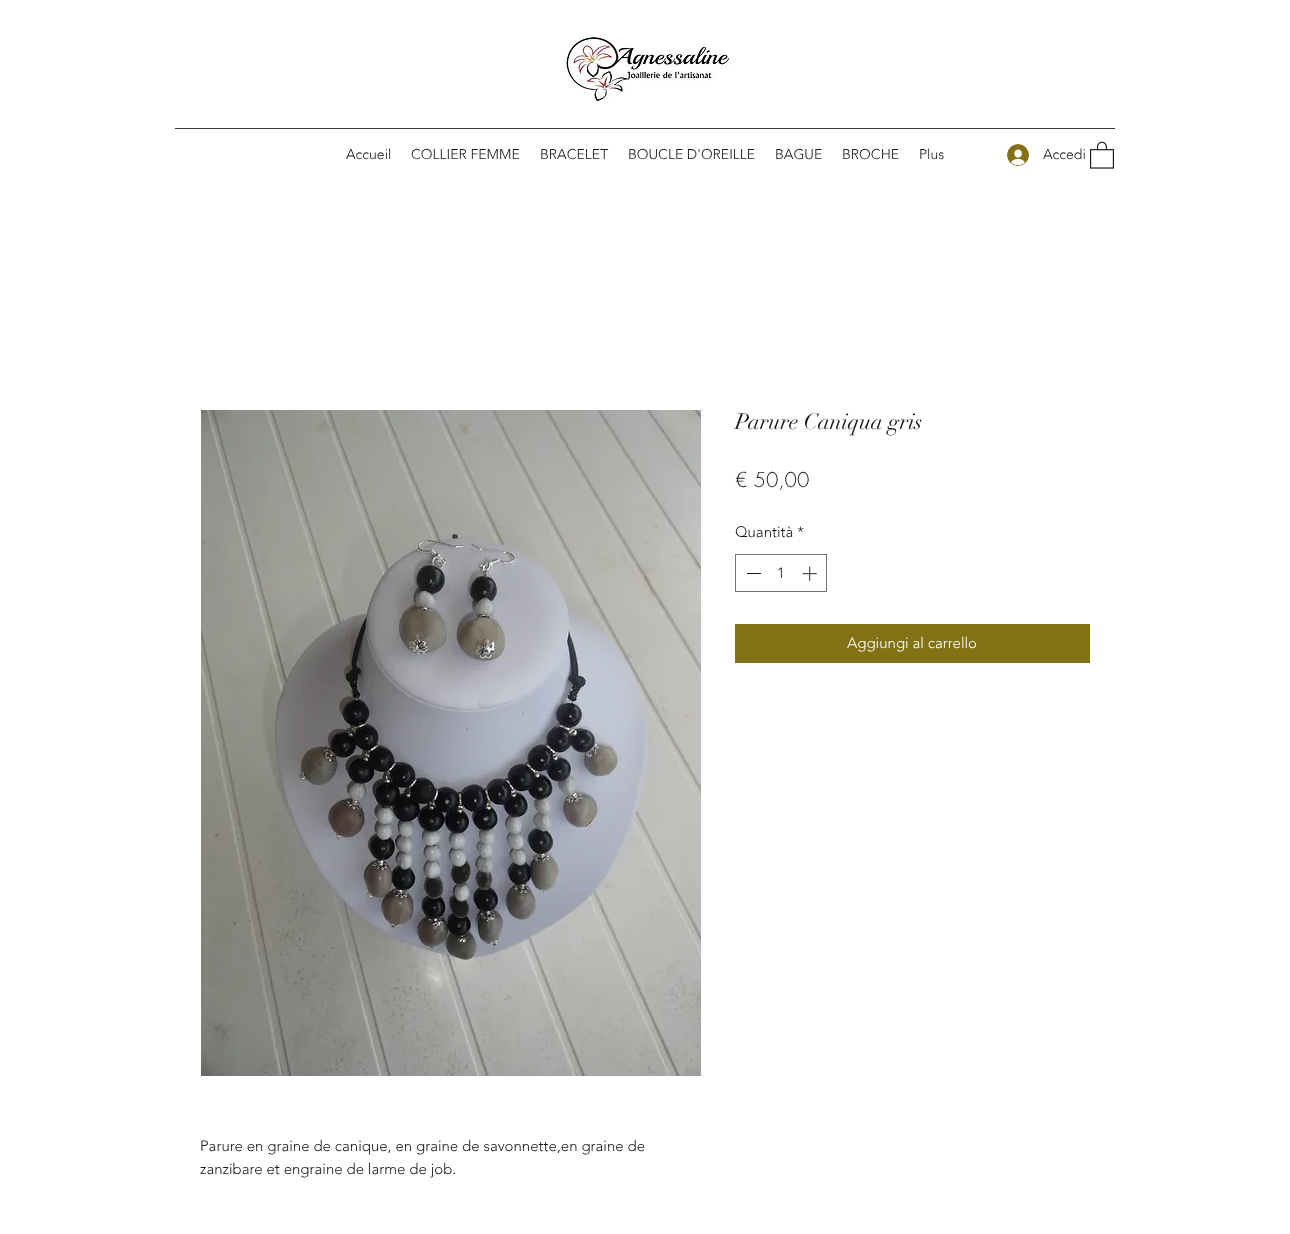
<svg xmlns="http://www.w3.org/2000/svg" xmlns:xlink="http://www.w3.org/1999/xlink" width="1290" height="1234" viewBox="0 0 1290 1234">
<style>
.cls-1{font:300 14px 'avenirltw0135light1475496';fill:#181818}
.cls-2{font:22px didot;fill:#181818}
.cls-3{font:300 20px futura;fill:#181818}
.cls-4{font:300 15px 'avenirltw0135light1475496';fill:#181818}
.cls-5{font:300 15px 'avenirltw0135light1475496';fill:#ffffff}
</style>
<rect width="100%" height="100%" fill="#ffffff"/>
<image xlink:href="image0.png" x="566" y="34" width="164" height="68"/>
<rect fill="#3b3b3b" x="175" y="128" width="940" height="1"/>
<image xlink:href="image1.png" x="1007" y="144" width="22" height="22"/>
<image xlink:href="image2.png" x="1090" y="141" width="24" height="28"/>
<rect fill="none" stroke="#747474" x="735.5" y="554.5" width="91" height="37"/>
<rect fill="#181818" x="747" y="573" width="14" height="1"/>
<image xlink:href="image3.png" x="802" y="566" width="15" height="15"/>
<rect fill="#837215" x="735" y="624" width="355" height="39"/>
<image xlink:href="image4.png" x="201" y="410" width="500" height="666"/>
<text class="cls-1" x="346" y="159">Accueil</text>
<text class="cls-1" x="411" y="159">COLLIER FEMME</text>
<text class="cls-1" x="540" y="159">BRACELET</text>
<text class="cls-1" x="628" y="159">BOUCLE D'OREILLE</text>
<text class="cls-1" x="775" y="159">BAGUE</text>
<text class="cls-1" x="842" y="159">BROCHE</text>
<text class="cls-1" x="919" y="159">Plus</text>
<text class="cls-1" x="1043" y="159">Accedi</text>
<text class="cls-2" x="735" y="429">Parure Caniqua gris</text>
<text class="cls-3" x="735" y="487">€ 50,00</text>
<text class="cls-4" x="735" y="537">Quantità *</text>
<text class="cls-4" x="777" y="578">1</text>
<text class="cls-5" x="847" y="648">Aggiungi al carrello</text>
<text class="cls-4"><tspan x="200" y="1151">Parure en graine de canique, en graine de savonnette,en graine de</tspan><tspan x="200" y="1174">zanzibare et engraine de larme de job.</tspan></text>
</svg>
